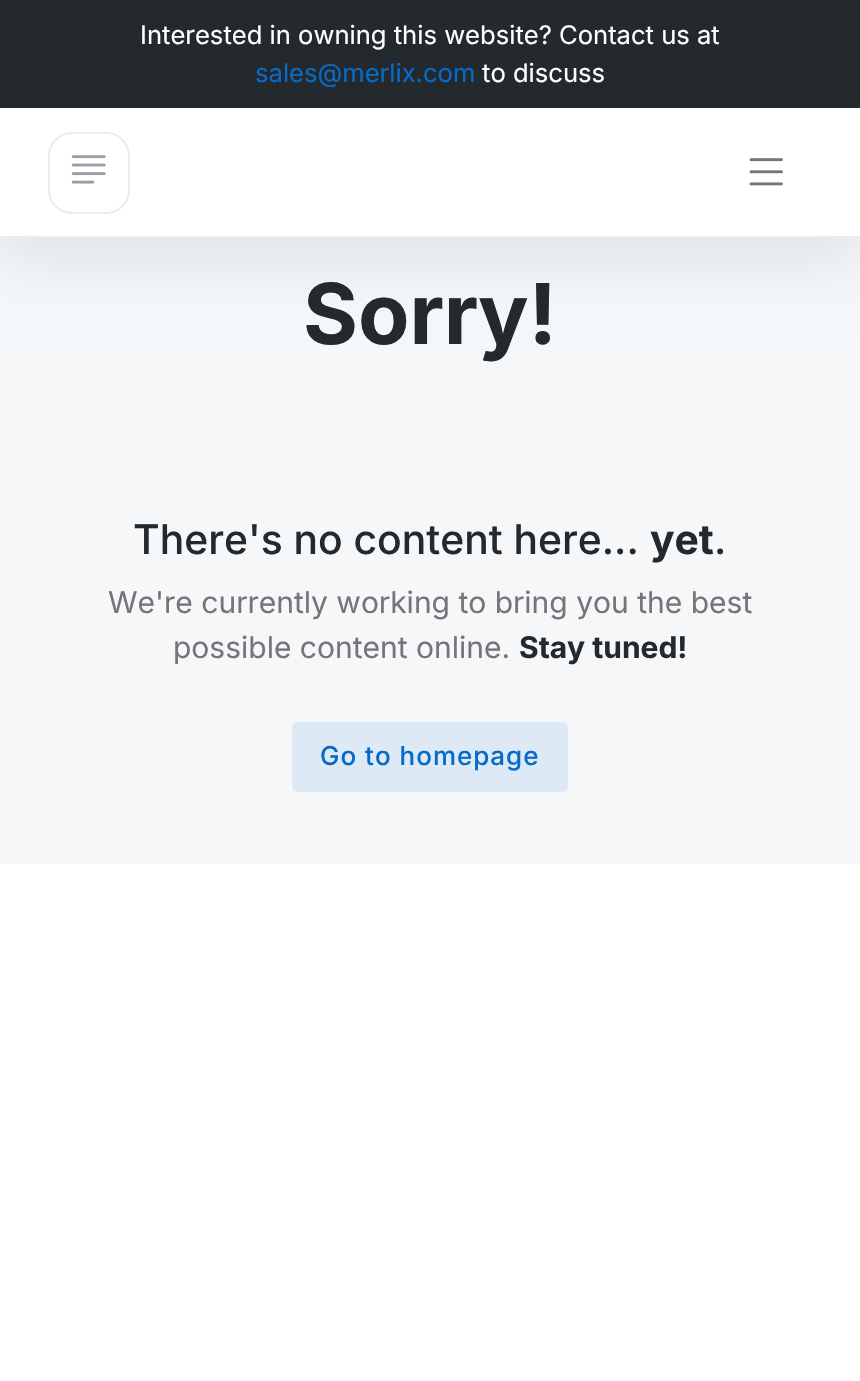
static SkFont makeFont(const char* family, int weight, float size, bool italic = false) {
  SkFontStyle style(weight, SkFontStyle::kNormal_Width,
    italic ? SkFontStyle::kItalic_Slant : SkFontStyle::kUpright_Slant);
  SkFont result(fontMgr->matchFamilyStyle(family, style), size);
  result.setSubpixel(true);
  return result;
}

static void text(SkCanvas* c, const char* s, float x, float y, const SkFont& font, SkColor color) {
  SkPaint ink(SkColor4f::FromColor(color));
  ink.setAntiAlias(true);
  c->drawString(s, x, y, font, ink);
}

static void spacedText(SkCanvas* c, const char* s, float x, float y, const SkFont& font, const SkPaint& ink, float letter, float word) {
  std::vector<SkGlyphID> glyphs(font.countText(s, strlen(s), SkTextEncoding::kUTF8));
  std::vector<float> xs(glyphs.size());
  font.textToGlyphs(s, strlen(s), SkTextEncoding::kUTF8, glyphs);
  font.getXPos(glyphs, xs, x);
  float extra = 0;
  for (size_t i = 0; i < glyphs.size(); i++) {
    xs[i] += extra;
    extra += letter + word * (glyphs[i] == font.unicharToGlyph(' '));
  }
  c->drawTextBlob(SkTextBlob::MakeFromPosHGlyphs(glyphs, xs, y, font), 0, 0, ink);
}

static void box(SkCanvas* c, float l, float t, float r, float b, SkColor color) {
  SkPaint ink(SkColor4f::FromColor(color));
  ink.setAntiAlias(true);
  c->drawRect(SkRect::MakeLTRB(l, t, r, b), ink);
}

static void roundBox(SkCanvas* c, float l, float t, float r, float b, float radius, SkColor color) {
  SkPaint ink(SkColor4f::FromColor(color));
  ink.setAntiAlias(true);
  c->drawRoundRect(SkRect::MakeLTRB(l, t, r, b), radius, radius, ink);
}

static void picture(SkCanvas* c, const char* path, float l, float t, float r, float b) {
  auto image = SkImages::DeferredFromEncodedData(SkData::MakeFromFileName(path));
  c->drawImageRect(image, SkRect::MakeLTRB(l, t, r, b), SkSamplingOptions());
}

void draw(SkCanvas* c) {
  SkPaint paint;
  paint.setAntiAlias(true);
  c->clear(0xffffffff);
  box(c, 0, 238, 860, 864, 0xfff5f7f9);
  paint.setColor(0x1a020617);
  paint.setMaskFilter(SkMaskFilter::MakeBlur(kNormal_SkBlurStyle, 30));
  c->drawRect(SkRect::MakeLTRB(0, 16, 860, 254), paint);
  paint.setMaskFilter(nullptr);
  box(c, 0, 108, 860, 236, 0xffffffff);
  box(c, 0, 236, 860, 238, 0xffececee);
  box(c, 0, 0, 860, 108, 0xff24292d);
  SkFont face1 = makeFont("Inter", 400, 25.6f);
  text(c, "Interested in owning this website? Contact us at", 140, 44, face1, 0xffffffff);
  text(c, "sales@merlix.com", 255, 82, face1, 0xff066ac9);
  text(c, "to discuss", 482, 82, face1, 0xffffffff);
  paint.setStyle(SkPaint::kStroke_Style);
  paint.setStrokeWidth(2);
  paint.setColor(0xffececee);
  c->drawRoundRect(SkRect::MakeLTRB(49, 133, 129, 213), 23, 23, paint);
  picture(c, "img_01.png", 71, 155, 106, 184);
  picture(c, "img_02.png", 749, 158, 783, 186);
  SkFont face2 = makeFont("Inter", 700, 84);
  text(c, "Sorry!", 303, 344, face2, 0xff24292d);
  SkFont face3 = makeFont("Inter", 500, 40.8f);
  text(c, "There's no content here...", 133, 554, face3, 0xff24292d);
  SkFont face4 = makeFont("Inter", 700, 40.8f);
  text(c, "yet", 650, 554, face4, 0xff24292d);
  text(c, ".", 714, 554, face3, 0xff24292d);
  SkFont face5 = makeFont("Inter", 400, 30);
  text(c, "We're currently working to bring you the best", 108, 613, face5, 0xff747579);
  text(c, "possible content online.", 173, 658, face5, 0xff747579);
  SkFont face6 = makeFont("Inter", 700, 30);
  text(c, "Stay tuned!", 519, 658, face6, 0xff24292d);
  roundBox(c, 292, 722, 568, 792, 6, 0xffdde9f4);
  SkFont face7 = makeFont("Inter", 500, 26);
  paint.setStyle(SkPaint::kFill_Style);
  paint.setColor(0xff066ac9);
  spacedText(c, "Go to homepage", 320, 765, face7, paint, 1, 0);
}
